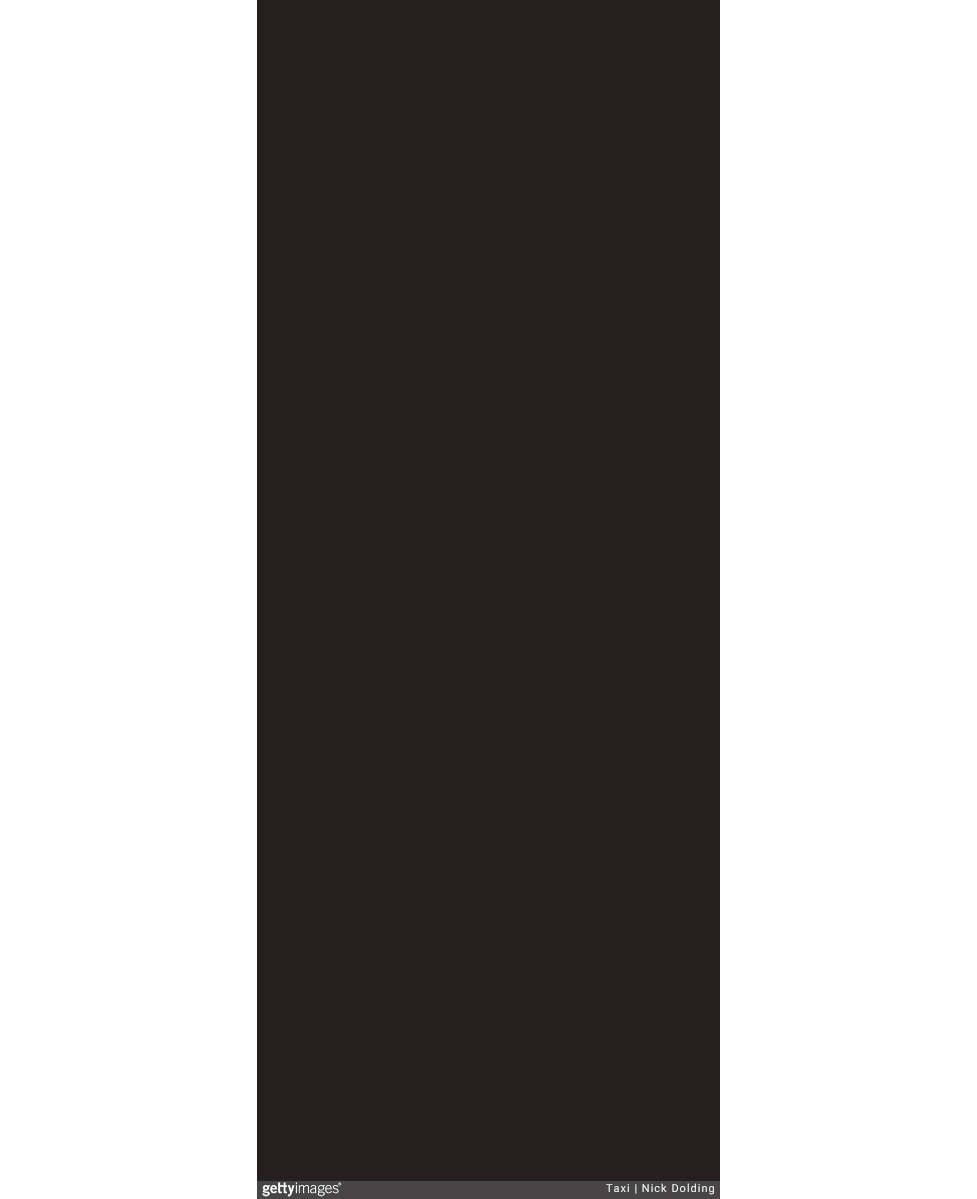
static SkFont makeFont(const char* family, int weight, float size, bool italic = false) {
  SkFontStyle style(weight, SkFontStyle::kNormal_Width,
    italic ? SkFontStyle::kItalic_Slant : SkFontStyle::kUpright_Slant);
  SkFont result(fontMgr->matchFamilyStyle(family, style), size);
  result.setSubpixel(true);
  return result;
}

static void spacedText(SkCanvas* c, const char* s, float x, float y, const SkFont& font, const SkPaint& ink, float letter, float word) {
  std::vector<SkGlyphID> glyphs(font.countText(s, strlen(s), SkTextEncoding::kUTF8));
  std::vector<float> xs(glyphs.size());
  font.textToGlyphs(s, strlen(s), SkTextEncoding::kUTF8, glyphs);
  font.getXPos(glyphs, xs, x);
  float extra = 0;
  for (size_t i = 0; i < glyphs.size(); i++) {
    xs[i] += extra;
    extra += letter + word * (glyphs[i] == font.unicharToGlyph(' '));
  }
  c->drawTextBlob(SkTextBlob::MakeFromPosHGlyphs(glyphs, xs, y, font), 0, 0, ink);
}

static void box(SkCanvas* c, float l, float t, float r, float b, SkColor color) {
  SkPaint ink(SkColor4f::FromColor(color));
  ink.setAntiAlias(true);
  c->drawRect(SkRect::MakeLTRB(l, t, r, b), ink);
}

static void picture(SkCanvas* c, const char* path, float l, float t, float r, float b) {
  auto image = SkImages::DeferredFromEncodedData(SkData::MakeFromFileName(path));
  c->drawImageRect(image, SkRect::MakeLTRB(l, t, r, b), SkSamplingOptions());
}

void draw(SkCanvas* c) {
  SkPaint paint;
  paint.setAntiAlias(true);
  c->clear(0xffffffff);
  box(c, 257, 0, 720, 1181, 0xff251f20);
  box(c, 257, 1181, 720, 1199, 0xff474545);
  picture(c, "img_01.png", 262, 1182, 342, 1197);
  SkFont face1 = makeFont("Roboto", 400, 11);
  paint.setColor(0xffeeeeee);
  spacedText(c, "Taxi | Nick Dolding", 606, 1192, face1, paint, 1, 0);
}
